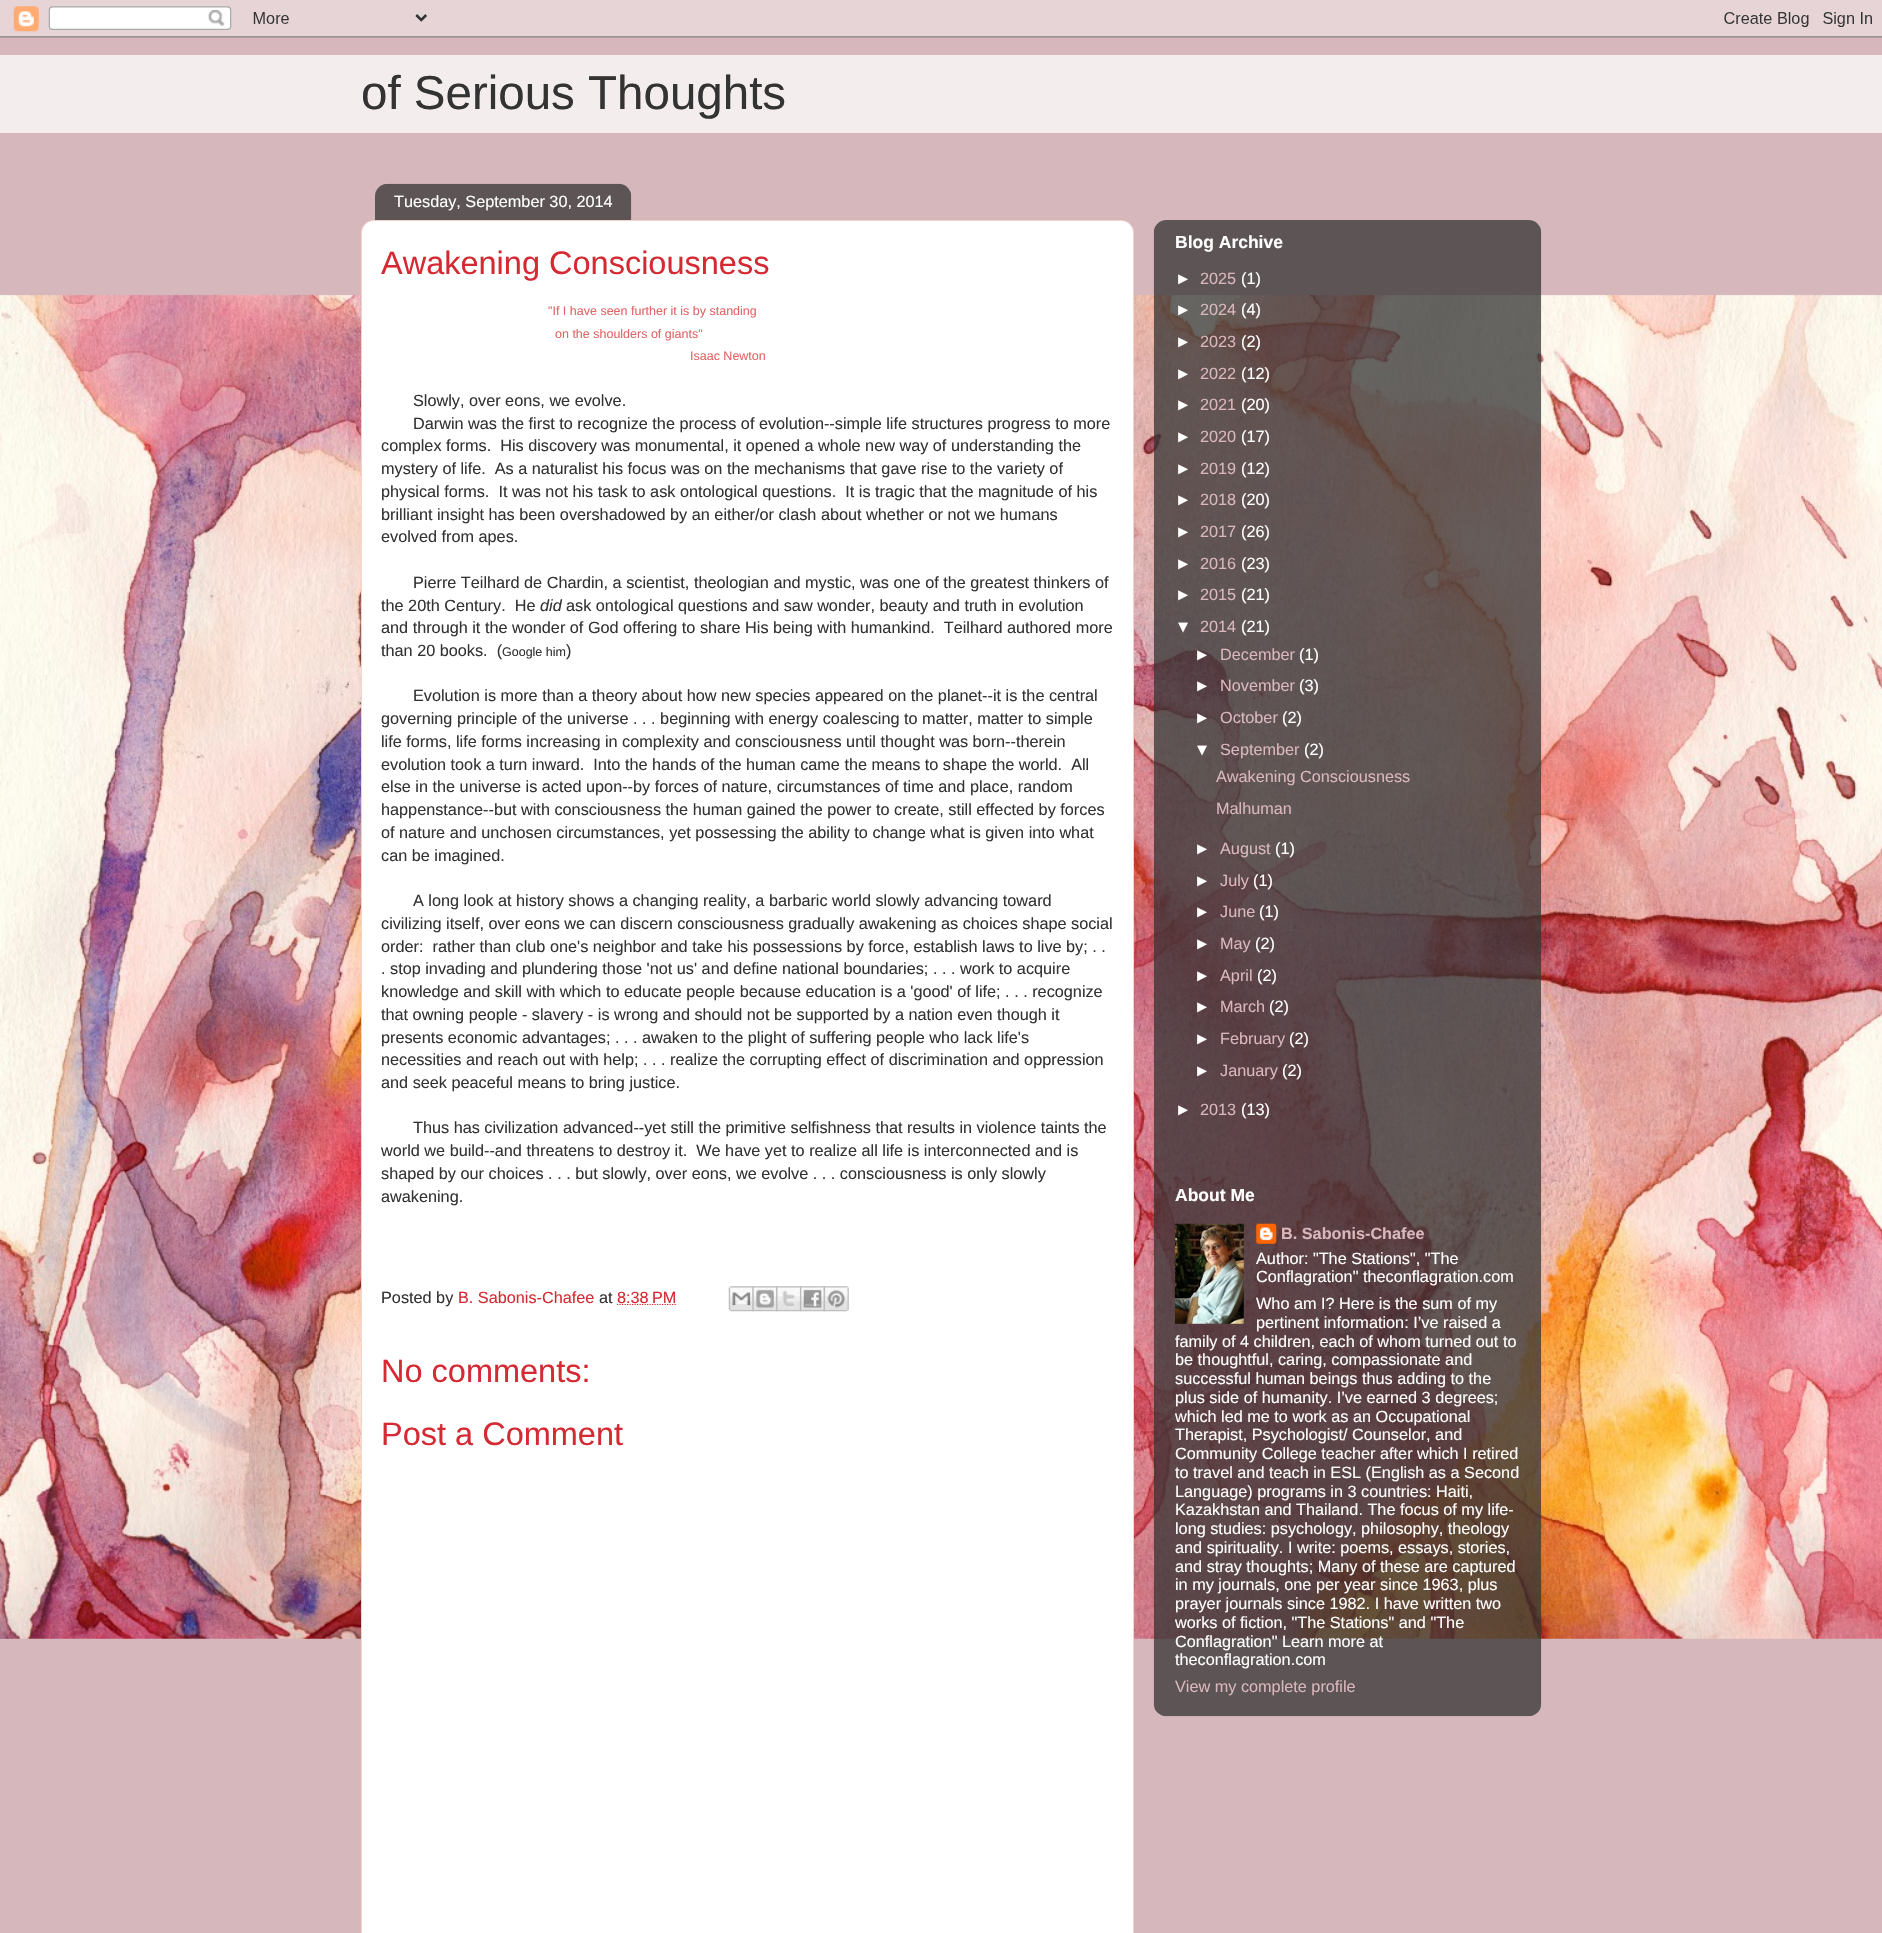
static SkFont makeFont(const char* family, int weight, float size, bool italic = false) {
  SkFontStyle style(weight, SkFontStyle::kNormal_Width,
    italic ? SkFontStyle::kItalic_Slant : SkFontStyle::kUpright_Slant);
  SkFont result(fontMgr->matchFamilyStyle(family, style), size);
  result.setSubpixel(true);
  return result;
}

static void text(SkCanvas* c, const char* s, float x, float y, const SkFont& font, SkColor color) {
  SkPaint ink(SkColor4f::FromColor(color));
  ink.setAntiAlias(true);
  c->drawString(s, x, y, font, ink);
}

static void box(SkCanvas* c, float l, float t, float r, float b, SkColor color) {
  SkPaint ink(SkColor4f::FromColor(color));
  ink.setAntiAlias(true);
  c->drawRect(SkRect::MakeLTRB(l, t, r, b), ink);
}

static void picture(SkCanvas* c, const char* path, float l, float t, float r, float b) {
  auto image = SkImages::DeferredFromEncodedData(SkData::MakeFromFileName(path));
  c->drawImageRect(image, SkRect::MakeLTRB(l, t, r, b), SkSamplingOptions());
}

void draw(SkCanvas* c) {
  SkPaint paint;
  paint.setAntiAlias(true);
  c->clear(0xffd5b7bc);
  picture(c, "img_01.png", 0, 294, 1882, 1639);
  picture(c, "img_02.png", 0, 0, 1882, 38);
  box(c, 0, 55, 1882, 133, 0xfff4edee);
  SkFont face1 = makeFont("Liberation Sans", 400, 47.5f);
  text(c, "of Serious Thoughts", 361, 109, face1, 0xff333333);
  paint.setColor(0xffffffff);
  c->drawPath(SkPathBuilder().moveTo(374, 220.5f).lineTo(1121, 220.5f).cubicTo(1128, 220.5f, 1133.5f, 226, 1133.5f, 233).lineTo(1133.5f, 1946.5f).lineTo(361.5f, 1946.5f).lineTo(361.5f, 233).cubicTo(361.5f, 226, 367, 220.5f, 374, 220.5f).close().detach(), paint);
  paint.setStyle(SkPaint::kStroke_Style);
  paint.setStrokeWidth(1);
  paint.setColor(0xfff4d3cc);
  c->drawPath(SkPathBuilder().moveTo(374, 220.5f).lineTo(1121, 220.5f).cubicTo(1128, 220.5f, 1133.5f, 226, 1133.5f, 233).lineTo(1133.5f, 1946.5f).lineTo(361.5f, 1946.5f).lineTo(361.5f, 233).cubicTo(361.5f, 226, 367, 220.5f, 374, 220.5f).close().detach(), paint);
  picture(c, "img_03.png", 375, 183, 632, 220);
  SkFont face2 = makeFont("Liberation Sans", 400, 16.25f);
  text(c, "Tuesday, September 30, 2014", 394, 207, face2, 0xffffffff);
  SkFont face3 = makeFont("Liberation Sans", 400, 32.5f);
  text(c, "Awakening Consciousness", 381, 274, face3, 0xffd52a33);
  SkFont face4 = makeFont("Liberation Sans", 400, 12.5f);
  text(c, "\"If I have seen further it is by standing", 548, 315, face4, 0xffe06666);
  text(c, "on the shoulders of giants\"", 555, 338, face4, 0xffe06666);
  text(c, "Isaac Newton", 690, 360, face4, 0xffe06666);
  text(c, "Slowly, over eons, we evolve.", 413, 406, face2, 0xff333333);
  text(c, "Darwin was the first to recognize the process of evolution--simple life structures progress to more", 413, 429, face2, 0xff333333);
  text(c, "complex forms.  His discovery was monumental, it opened a whole new way of understanding the", 381, 451, face2, 0xff333333);
  text(c, "mystery of life.  As a naturalist his focus was on the mechanisms that gave rise to the variety of", 381, 474, face2, 0xff333333);
  text(c, "physical forms.  It was not his task to ask ontological questions.  It is tragic that the magnitude of his", 381, 497, face2, 0xff333333);
  text(c, "brilliant insight has been overshadowed by an either/or clash about whether or not we humans", 381, 520, face2, 0xff333333);
  text(c, "evolved from apes.", 381, 542, face2, 0xff333333);
  text(c, "Pierre Teilhard de Chardin, a scientist, theologian and mystic, was one of the greatest thinkers of", 413, 588, face2, 0xff333333);
  text(c, "the 20th Century.  He", 381, 611, face2, 0xff333333);
  SkFont face5 = makeFont("Liberation Sans", 400, 16.25f, true);
  text(c, "did", 540, 611, face5, 0xff333333);
  text(c, "ask ontological questions and saw wonder, beauty and truth in evolution", 566, 611, face2, 0xff333333);
  text(c, "and through it the wonder of God offering to share His being with humankind.  Teilhard authored more", 381, 633, face2, 0xff333333);
  text(c, "than 20 books.  (", 381, 656, face2, 0xff333333);
  text(c, "Google him", 502, 656, face4, 0xff333333);
  text(c, ")", 566, 656, face2, 0xff333333);
  text(c, "Evolution is more than a theory about how new species appeared on the planet--it is the central", 413, 701, face2, 0xff333333);
  text(c, "governing principle of the universe . . . beginning with energy coalescing to matter, matter to simple", 381, 724, face2, 0xff333333);
  text(c, "life forms, life forms increasing in complexity and consciousness until thought was born--therein", 381, 747, face2, 0xff333333);
  text(c, "evolution took a turn inward.  Into the hands of the human came the means to shape the world.  All", 381, 770, face2, 0xff333333);
  text(c, "else in the universe is acted upon--by forces of nature, circumstances of time and place, random", 381, 792, face2, 0xff333333);
  text(c, "happenstance--but with consciousness the human gained the power to create, still effected by forces", 381, 815, face2, 0xff333333);
  text(c, "of nature and unchosen circumstances, yet possessing the ability to change what is given into what", 381, 838, face2, 0xff333333);
  text(c, "can be imagined.", 381, 861, face2, 0xff333333);
  text(c, "A long look at history shows a changing reality, a barbaric world slowly advancing toward", 413, 906, face2, 0xff333333);
  text(c, "civilizing itself, over eons we can discern consciousness gradually awakening as choices shape social", 381, 929, face2, 0xff333333);
  text(c, "order:  rather than club one's neighbor and take his possessions by force, establish laws to live by; . .", 381, 952, face2, 0xff333333);
  text(c, ". stop invading and plundering those 'not us' and define national boundaries; . . . work to acquire", 381, 974, face2, 0xff333333);
  text(c, "knowledge and skill with which to educate people because education is a 'good' of life; . . . recognize", 381, 997, face2, 0xff333333);
  text(c, "that owning people - slavery - is wrong and should not be supported by a nation even though it", 381, 1020, face2, 0xff333333);
  text(c, "presents economic advantages; . . . awaken to the plight of suffering people who lack life's", 381, 1043, face2, 0xff333333);
  text(c, "necessities and reach out with help; . . . realize the corrupting effect of discrimination and oppression", 381, 1065, face2, 0xff333333);
  text(c, "and seek peaceful means to bring justice.", 381, 1088, face2, 0xff333333);
  text(c, "Thus has civilization advanced--yet still the primitive selfishness that results in violence taints the", 413, 1133, face2, 0xff333333);
  text(c, "world we build--and threatens to destroy it.  We have yet to realize all life is interconnected and is", 381, 1156, face2, 0xff333333);
  text(c, "shaped by our choices . . . but slowly, over eons, we evolve . . . consciousness is only slowly", 381, 1179, face2, 0xff333333);
  text(c, "awakening.", 381, 1202, face2, 0xff333333);
  text(c, "Posted by", 381, 1303, face2, 0xff333333);
  text(c, "B. Sabonis-Chafee", 458, 1303, face2, 0xffd52a33);
  text(c, "at", 599, 1303, face2, 0xff333333);
  paint.setStrokeWidth(1.2f);
  paint.setColor(0xffd52a33);
  paint.setPathEffect(SkDashPathEffect::Make({{1.25f, 1.25f}}, 0));
  c->drawPath(SkPathBuilder().moveTo(617, 1304.5f).lineTo(676.5f, 1304.5f).detach(), paint);
  paint.setPathEffect(nullptr);
  text(c, "8:38 PM", 617, 1303, face2, 0xffd52a33);
  picture(c, "img_04.png", 728, 1286, 754, 1312);
  picture(c, "img_05.png", 752, 1286, 778, 1312);
  picture(c, "img_06.png", 776, 1286, 802, 1312);
  picture(c, "img_07.png", 800, 1286, 825, 1312);
  picture(c, "img_08.png", 823, 1286, 849, 1312);
  text(c, "No comments:", 381, 1382, face3, 0xffd52a33);
  text(c, "Post a Comment", 381, 1445, face3, 0xffd52a33);
  picture(c, "img_09.png", 1153, 220, 1542, 1717);
  SkFont face6 = makeFont("Liberation Sans", 700, 17.5f);
  text(c, "Blog Archive", 1175, 248, face6, 0xffffffff);
  text(c, "►", 1175, 284, face2, 0xffffffff);
  text(c, "2025", 1200, 284, face2, 0xffdab7bc);
  text(c, "(1)", 1241, 284, face2, 0xffffffff);
  text(c, "►", 1175, 315, face2, 0xffffffff);
  text(c, "2024", 1200, 315, face2, 0xffdab7bc);
  text(c, "(4)", 1241, 315, face2, 0xffffffff);
  text(c, "►", 1175, 347, face2, 0xffffffff);
  text(c, "2023", 1200, 347, face2, 0xffdab7bc);
  text(c, "(2)", 1241, 347, face2, 0xffffffff);
  text(c, "►", 1175, 379, face2, 0xffffffff);
  text(c, "2022", 1200, 379, face2, 0xffdab7bc);
  text(c, "(12)", 1241, 379, face2, 0xffffffff);
  text(c, "►", 1175, 410, face2, 0xffffffff);
  text(c, "2021", 1200, 410, face2, 0xffdab7bc);
  text(c, "(20)", 1241, 410, face2, 0xffffffff);
  text(c, "►", 1175, 442, face2, 0xffffffff);
  text(c, "2020", 1200, 442, face2, 0xffdab7bc);
  text(c, "(17)", 1241, 442, face2, 0xffffffff);
  text(c, "►", 1175, 474, face2, 0xffffffff);
  text(c, "2019", 1200, 474, face2, 0xffdab7bc);
  text(c, "(12)", 1241, 474, face2, 0xffffffff);
  text(c, "►", 1175, 505, face2, 0xffffffff);
  text(c, "2018", 1200, 505, face2, 0xffdab7bc);
  text(c, "(20)", 1241, 505, face2, 0xffffffff);
  text(c, "►", 1175, 537, face2, 0xffffffff);
  text(c, "2017", 1200, 537, face2, 0xffdab7bc);
  text(c, "(26)", 1241, 537, face2, 0xffffffff);
  text(c, "►", 1175, 569, face2, 0xffffffff);
  text(c, "2016", 1200, 569, face2, 0xffdab7bc);
  text(c, "(23)", 1241, 569, face2, 0xffffffff);
  text(c, "►", 1175, 600, face2, 0xffffffff);
  text(c, "2015", 1200, 600, face2, 0xffdab7bc);
  text(c, "(21)", 1241, 600, face2, 0xffffffff);
  text(c, "▼", 1175, 632, face2, 0xffffffff);
  text(c, "2014", 1200, 632, face2, 0xffdab7bc);
  text(c, "(21)", 1241, 632, face2, 0xffffffff);
  text(c, "►", 1194, 660, face2, 0xffffffff);
  text(c, "December", 1220, 660, face2, 0xffdab7bc);
  text(c, "(1)", 1299, 660, face2, 0xffffffff);
  text(c, "►", 1194, 691, face2, 0xffffffff);
  text(c, "November", 1220, 691, face2, 0xffdab7bc);
  text(c, "(3)", 1299, 691, face2, 0xffffffff);
  text(c, "►", 1194, 723, face2, 0xffffffff);
  text(c, "October", 1220, 723, face2, 0xffdab7bc);
  text(c, "(2)", 1282, 723, face2, 0xffffffff);
  text(c, "▼", 1194, 755, face2, 0xffffffff);
  text(c, "September", 1220, 755, face2, 0xffdab7bc);
  text(c, "(2)", 1304, 755, face2, 0xffffffff);
  text(c, "Awakening Consciousness", 1216, 782, face2, 0xffdab7bc);
  text(c, "Malhuman", 1216, 814, face2, 0xffdab7bc);
  text(c, "►", 1194, 854, face2, 0xffffffff);
  text(c, "August", 1220, 854, face2, 0xffdab7bc);
  text(c, "(1)", 1275, 854, face2, 0xffffffff);
  text(c, "►", 1194, 886, face2, 0xffffffff);
  text(c, "July", 1220, 886, face2, 0xffdab7bc);
  text(c, "(1)", 1253, 886, face2, 0xffffffff);
  text(c, "►", 1194, 917, face2, 0xffffffff);
  text(c, "June", 1220, 917, face2, 0xffdab7bc);
  text(c, "(1)", 1259, 917, face2, 0xffffffff);
  text(c, "►", 1194, 949, face2, 0xffffffff);
  text(c, "May", 1220, 949, face2, 0xffdab7bc);
  text(c, "(2)", 1255, 949, face2, 0xffffffff);
  text(c, "►", 1194, 981, face2, 0xffffffff);
  text(c, "April", 1220, 981, face2, 0xffdab7bc);
  text(c, "(2)", 1257, 981, face2, 0xffffffff);
  text(c, "►", 1194, 1012, face2, 0xffffffff);
  text(c, "March", 1220, 1012, face2, 0xffdab7bc);
  text(c, "(2)", 1269, 1012, face2, 0xffffffff);
  text(c, "►", 1194, 1044, face2, 0xffffffff);
  text(c, "February", 1220, 1044, face2, 0xffdab7bc);
  text(c, "(2)", 1289, 1044, face2, 0xffffffff);
  text(c, "►", 1194, 1076, face2, 0xffffffff);
  text(c, "January", 1220, 1076, face2, 0xffdab7bc);
  text(c, "(2)", 1282, 1076, face2, 0xffffffff);
  text(c, "►", 1175, 1115, face2, 0xffffffff);
  text(c, "2013", 1200, 1115, face2, 0xffdab7bc);
  text(c, "(13)", 1241, 1115, face2, 0xffffffff);
  text(c, "About Me", 1175, 1201, face6, 0xffffffff);
  picture(c, "img_10.png", 1175, 1223, 1244, 1324);
  picture(c, "img_11.png", 1256, 1223, 1277, 1244);
  SkFont face7 = makeFont("Liberation Sans", 700, 16.25f);
  text(c, "B. Sabonis-Chafee", 1281, 1239, face7, 0xffdab7bc);
  text(c, "Author: \"The Stations\", \"The", 1256, 1264, face2, 0xffffffff);
  text(c, "Conflagration\" theconflagration.com", 1256, 1282, face2, 0xffffffff);
  text(c, "Who am I? Here is the sum of my", 1256, 1309, face2, 0xffffffff);
  text(c, "pertinent information: I’ve raised a", 1256, 1328, face2, 0xffffffff);
  text(c, "family of 4 children, each of whom turned out to", 1175, 1347, face2, 0xffffffff);
  text(c, "be thoughtful, caring, compassionate and", 1175, 1365, face2, 0xffffffff);
  text(c, "successful human beings thus adding to the", 1175, 1384, face2, 0xffffffff);
  text(c, "plus side of humanity. I’ve earned 3 degrees;", 1175, 1403, face2, 0xffffffff);
  text(c, "which led me to work as an Occupational", 1175, 1422, face2, 0xffffffff);
  text(c, "Therapist, Psychologist/ Counselor, and", 1175, 1440, face2, 0xffffffff);
  text(c, "Community College teacher after which I retired", 1175, 1459, face2, 0xffffffff);
  text(c, "to travel and teach in ESL (English as a Second", 1175, 1478, face2, 0xffffffff);
  text(c, "Language) programs in 3 countries: Haiti,", 1175, 1497, face2, 0xffffffff);
  text(c, "Kazakhstan and Thailand. The focus of my life-", 1175, 1515, face2, 0xffffffff);
  text(c, "long studies: psychology, philosophy, theology", 1175, 1534, face2, 0xffffffff);
  text(c, "and spirituality. I write: poems, essays, stories,", 1175, 1553, face2, 0xffffffff);
  text(c, "and stray thoughts; Many of these are captured", 1175, 1572, face2, 0xffffffff);
  text(c, "in my journals, one per year since 1963, plus", 1175, 1590, face2, 0xffffffff);
  text(c, "prayer journals since 1982. I have written two", 1175, 1609, face2, 0xffffffff);
  text(c, "works of fiction, \"The Stations\" and \"The", 1175, 1628, face2, 0xffffffff);
  text(c, "Conflagration\" Learn more at", 1175, 1647, face2, 0xffffffff);
  text(c, "theconflagration.com", 1175, 1665, face2, 0xffffffff);
  text(c, "View my complete profile", 1175, 1692, face2, 0xffdab7bc);
}
